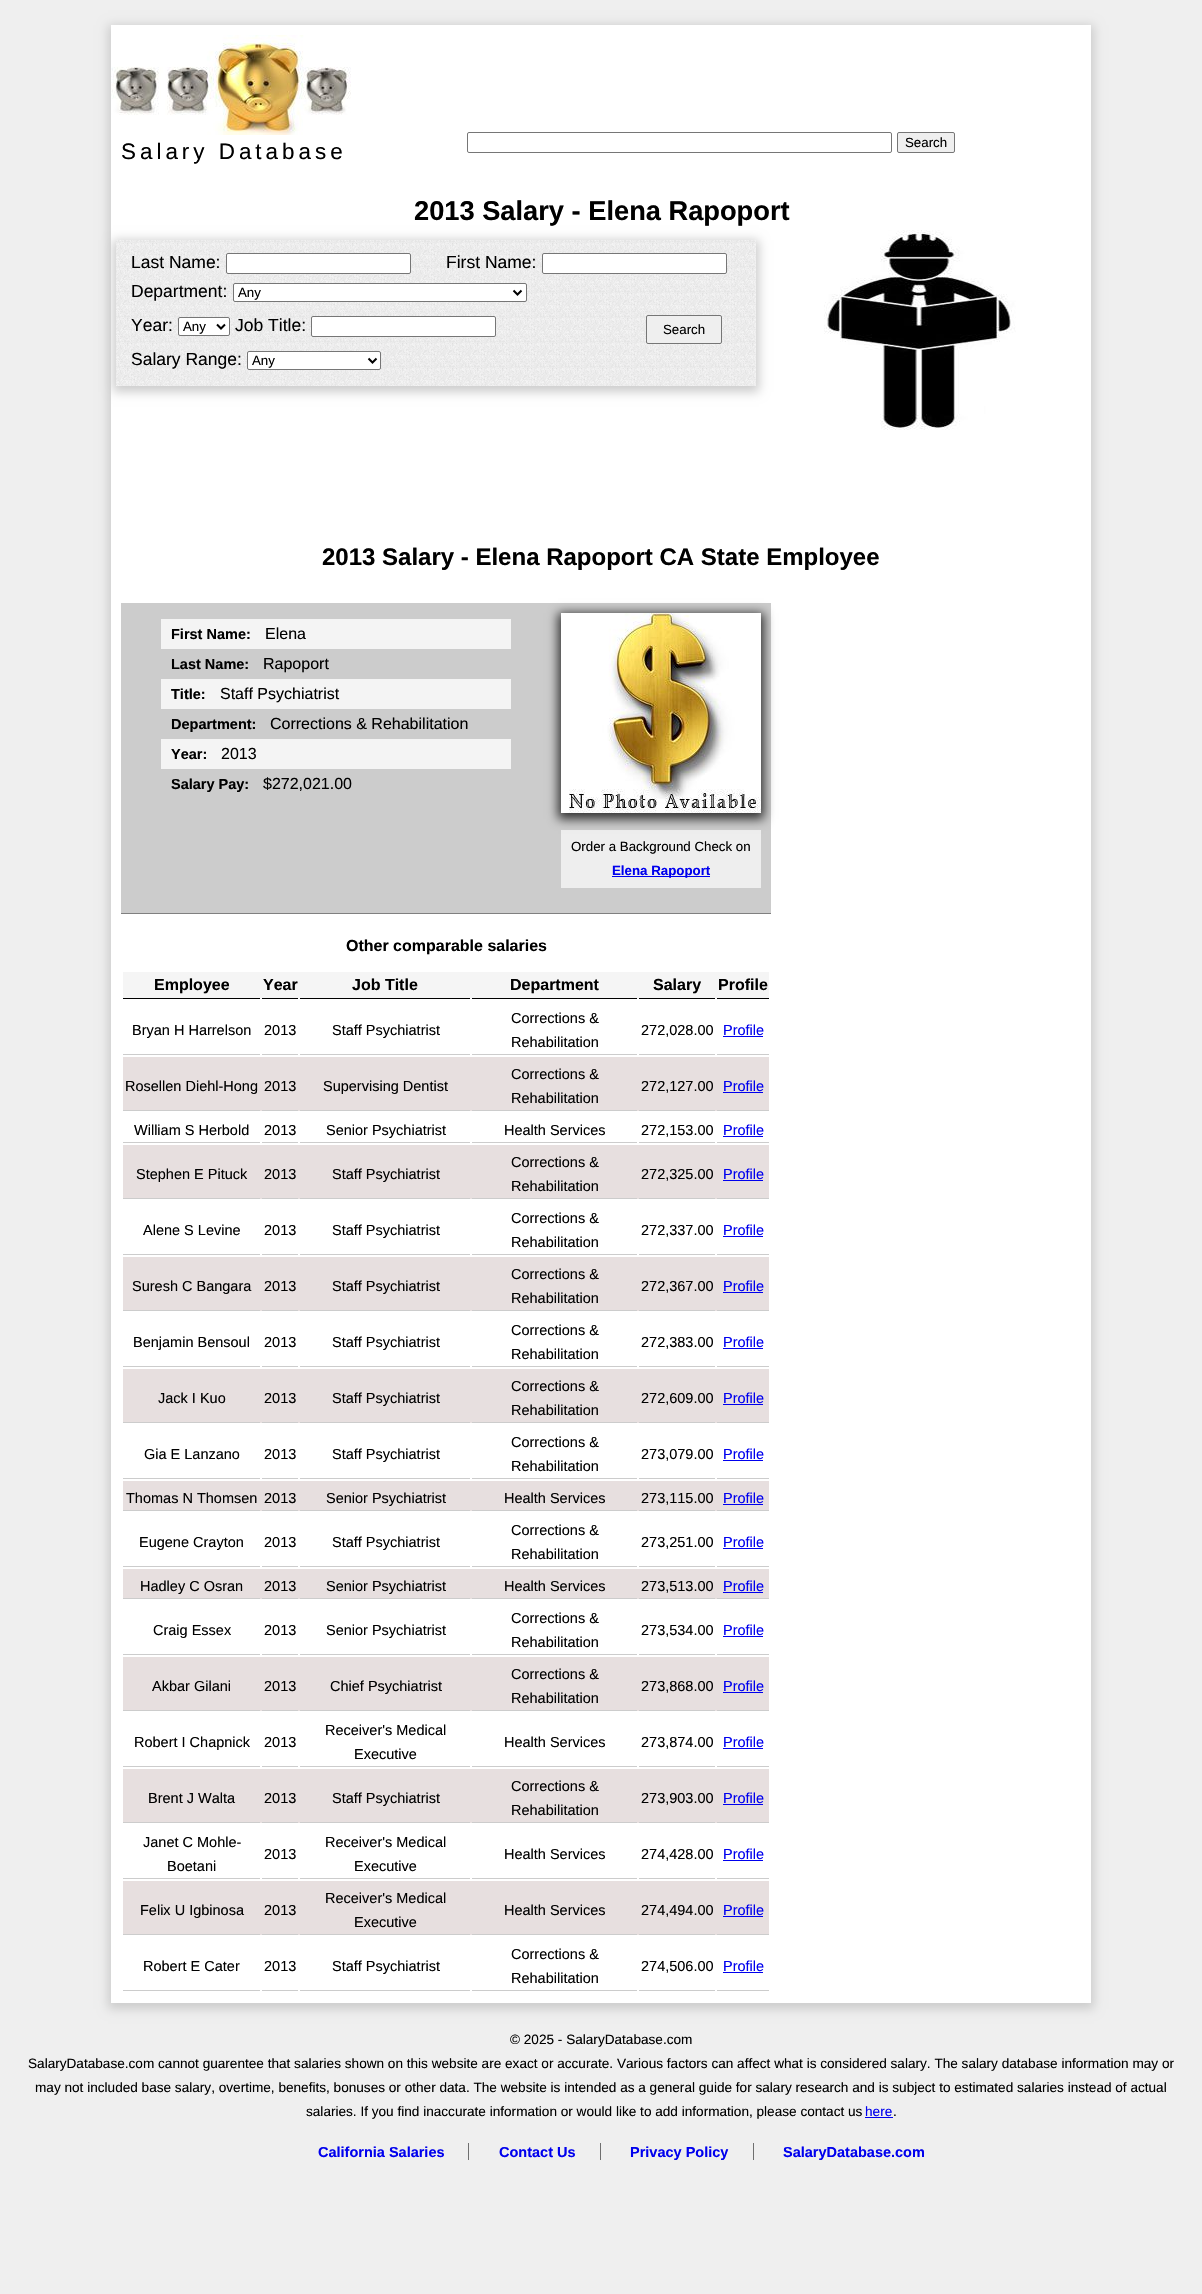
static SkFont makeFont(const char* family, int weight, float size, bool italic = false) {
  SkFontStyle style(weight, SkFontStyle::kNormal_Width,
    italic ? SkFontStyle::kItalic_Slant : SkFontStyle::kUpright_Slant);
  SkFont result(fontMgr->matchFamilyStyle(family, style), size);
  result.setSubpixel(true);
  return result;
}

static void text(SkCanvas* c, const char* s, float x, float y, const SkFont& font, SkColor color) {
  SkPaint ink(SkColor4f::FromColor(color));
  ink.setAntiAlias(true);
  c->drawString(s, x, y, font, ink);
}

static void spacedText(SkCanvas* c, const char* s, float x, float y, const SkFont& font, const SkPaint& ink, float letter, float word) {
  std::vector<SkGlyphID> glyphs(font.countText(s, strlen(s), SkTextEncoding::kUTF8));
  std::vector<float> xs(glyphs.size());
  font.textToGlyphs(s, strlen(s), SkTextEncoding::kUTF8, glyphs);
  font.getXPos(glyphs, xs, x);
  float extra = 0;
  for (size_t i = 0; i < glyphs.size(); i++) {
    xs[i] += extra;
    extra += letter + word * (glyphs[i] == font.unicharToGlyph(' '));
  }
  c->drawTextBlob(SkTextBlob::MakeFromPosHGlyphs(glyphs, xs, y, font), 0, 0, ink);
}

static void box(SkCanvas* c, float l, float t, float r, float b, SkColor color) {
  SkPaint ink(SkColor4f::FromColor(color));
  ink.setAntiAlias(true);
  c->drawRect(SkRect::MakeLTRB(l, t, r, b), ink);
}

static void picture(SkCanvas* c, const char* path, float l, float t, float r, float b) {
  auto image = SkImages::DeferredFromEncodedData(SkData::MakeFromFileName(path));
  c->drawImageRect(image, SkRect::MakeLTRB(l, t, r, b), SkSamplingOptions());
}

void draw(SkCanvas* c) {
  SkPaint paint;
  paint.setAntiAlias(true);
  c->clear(0xffefefef);
  paint.setColor(0xffcccccc);
  paint.setMaskFilter(SkMaskFilter::MakeBlur(kNormal_SkBlurStyle, 5));
  c->drawRect(SkRect::MakeLTRB(108, 25, 1094, 2009), paint);
  paint.setMaskFilter(nullptr);
  box(c, 111, 25, 1091, 2003, 0xffffffff);
  picture(c, "img_01.png", 111, 35, 351, 135);
  SkFont face1 = makeFont("Liberation Sans", 400, 22.4f);
  paint.setColor(0xff000000);
  spacedText(c, "Salary Database", 121, 159, face1, paint, 4, 0);
  paint.setStyle(SkPaint::kStroke_Style);
  paint.setStrokeWidth(1);
  paint.setColor(0xff767676);
  c->drawRoundRect(SkRect::MakeLTRB(467.5f, 132.5f, 891.5f, 152.5f), 1.5f, 1.5f, paint);
  paint.setStyle(SkPaint::kFill_Style);
  paint.setColor(0xffefefef);
  c->drawRoundRect(SkRect::MakeLTRB(897.5f, 132.5f, 954.5f, 152.5f), 1.5f, 1.5f, paint);
  paint.setStyle(SkPaint::kStroke_Style);
  paint.setColor(0xff767676);
  c->drawRoundRect(SkRect::MakeLTRB(897.5f, 132.5f, 954.5f, 152.5f), 1.5f, 1.5f, paint);
  SkFont face2 = makeFont("Liberation Sans", 400, 13.3f);
  text(c, "Search", 905, 147, face2, 0xff000000);
  SkFont face3 = makeFont("Liberation Sans", 700, 27.25f);
  text(c, "2013 Salary - Elena Rapoport", 414, 220, face3, 0xff000000);
  paint.setStyle(SkPaint::kFill_Style);
  paint.setColor(0xffcccccc);
  paint.setMaskFilter(SkMaskFilter::MakeBlur(kNormal_SkBlurStyle, 5));
  c->drawRect(SkRect::MakeLTRB(113, 240, 759, 392), paint);
  paint.setMaskFilter(nullptr);
  picture(c, "img_02.png", 116, 240, 756, 386);
  SkFont face4 = makeFont("Liberation Sans", 400, 17.5f);
  text(c, "Last Name:", 131, 268, face4, 0xff000000);
  paint.setColor(0xffffffff);
  c->drawRoundRect(SkRect::MakeLTRB(226.5f, 253.5f, 410.5f, 273.5f), 1.5f, 1.5f, paint);
  paint.setStyle(SkPaint::kStroke_Style);
  paint.setColor(0xff767676);
  c->drawRoundRect(SkRect::MakeLTRB(226.5f, 253.5f, 410.5f, 273.5f), 1.5f, 1.5f, paint);
  text(c, "First Name:", 446, 268, face4, 0xff000000);
  paint.setStyle(SkPaint::kFill_Style);
  paint.setColor(0xffffffff);
  c->drawRoundRect(SkRect::MakeLTRB(542.5f, 253.5f, 726.5f, 273.5f), 1.5f, 1.5f, paint);
  paint.setStyle(SkPaint::kStroke_Style);
  paint.setColor(0xff767676);
  c->drawRoundRect(SkRect::MakeLTRB(542.5f, 253.5f, 726.5f, 273.5f), 1.5f, 1.5f, paint);
  text(c, "Department:", 131, 297, face4, 0xff000000);
  paint.setStyle(SkPaint::kFill_Style);
  paint.setColor(0xffffffff);
  c->drawRoundRect(SkRect::MakeLTRB(233.5f, 283.5f, 526.5f, 301.5f), 1.5f, 1.5f, paint);
  paint.setStyle(SkPaint::kStroke_Style);
  paint.setColor(0xff767676);
  c->drawRoundRect(SkRect::MakeLTRB(233.5f, 283.5f, 526.5f, 301.5f), 1.5f, 1.5f, paint);
  paint.setStrokeWidth(2);
  paint.setColor(0xff000000);
  c->drawPath(SkPathBuilder().moveTo(513.5f, 290.5f).lineTo(517.5f, 294.5f).lineTo(521.5f, 290.5f).detach(), paint);
  text(c, "Any", 238, 297, face2, 0xff000000);
  text(c, "Year:", 131, 331, face4, 0xff000000);
  paint.setStyle(SkPaint::kFill_Style);
  paint.setColor(0xffffffff);
  c->drawRoundRect(SkRect::MakeLTRB(178.5f, 317.5f, 229.5f, 335.5f), 1.5f, 1.5f, paint);
  paint.setStyle(SkPaint::kStroke_Style);
  paint.setStrokeWidth(1);
  paint.setColor(0xff767676);
  c->drawRoundRect(SkRect::MakeLTRB(178.5f, 317.5f, 229.5f, 335.5f), 1.5f, 1.5f, paint);
  paint.setStrokeWidth(2);
  paint.setColor(0xff000000);
  c->drawPath(SkPathBuilder().moveTo(217, 324.5f).lineTo(221, 328.5f).lineTo(225, 324.5f).detach(), paint);
  text(c, "Any", 183, 331, face2, 0xff000000);
  text(c, "Job Title:", 235, 331, face4, 0xff000000);
  paint.setStyle(SkPaint::kFill_Style);
  paint.setColor(0xffffffff);
  c->drawRoundRect(SkRect::MakeLTRB(311.5f, 316.5f, 495.5f, 336.5f), 1.5f, 1.5f, paint);
  paint.setStyle(SkPaint::kStroke_Style);
  paint.setStrokeWidth(1);
  paint.setColor(0xff767676);
  c->drawRoundRect(SkRect::MakeLTRB(311.5f, 316.5f, 495.5f, 336.5f), 1.5f, 1.5f, paint);
  paint.setStyle(SkPaint::kFill_Style);
  paint.setColor(0xffefefef);
  c->drawRoundRect(SkRect::MakeLTRB(646.5f, 315.5f, 721.5f, 343.5f), 1.5f, 1.5f, paint);
  paint.setStyle(SkPaint::kStroke_Style);
  paint.setColor(0xff767676);
  c->drawRoundRect(SkRect::MakeLTRB(646.5f, 315.5f, 721.5f, 343.5f), 1.5f, 1.5f, paint);
  text(c, "Search", 663, 334, face2, 0xff000000);
  text(c, "Salary Range:", 131, 365, face4, 0xff000000);
  paint.setStyle(SkPaint::kFill_Style);
  paint.setColor(0xffffffff);
  c->drawRoundRect(SkRect::MakeLTRB(247.5f, 351.5f, 380.5f, 369.5f), 1.5f, 1.5f, paint);
  paint.setStyle(SkPaint::kStroke_Style);
  paint.setColor(0xff767676);
  c->drawRoundRect(SkRect::MakeLTRB(247.5f, 351.5f, 380.5f, 369.5f), 1.5f, 1.5f, paint);
  paint.setStrokeWidth(2);
  paint.setColor(0xff000000);
  c->drawPath(SkPathBuilder().moveTo(368.5f, 358.5f).lineTo(372.5f, 362.5f).lineTo(376.5f, 358.5f).detach(), paint);
  text(c, "Any", 252, 365, face2, 0xff000000);
  picture(c, "img_03.png", 824, 230, 1016, 430);
  SkFont face5 = makeFont("Liberation Sans", 700, 24);
  text(c, "2013 Salary - Elena Rapoport CA State Employee", 322, 565, face5, 0xff000000);
  box(c, 121, 603, 771, 913, 0xffcccccc);
  box(c, 121, 913, 771, 914, 0xff808080);
  box(c, 161, 619, 511, 649, 0xfff4f4f4);
  SkFont face6 = makeFont("Liberation Sans", 700, 14.5f);
  text(c, "First Name:", 171, 639, face6, 0xff000000);
  SkFont face7 = makeFont("Liberation Sans", 400, 16);
  text(c, "Elena", 265, 639, face7, 0xff000000);
  text(c, "Last Name:", 171, 669, face6, 0xff000000);
  text(c, "Rapoport", 263, 669, face7, 0xff000000);
  box(c, 161, 679, 511, 709, 0xfff4f4f4);
  text(c, "Title:", 171, 699, face6, 0xff000000);
  text(c, "Staff Psychiatrist", 220, 699, face7, 0xff000000);
  text(c, "Department:", 171, 729, face6, 0xff000000);
  text(c, "Corrections & Rehabilitation", 270, 729, face7, 0xff000000);
  box(c, 161, 739, 511, 769, 0xfff4f4f4);
  text(c, "Year:", 171, 759, face6, 0xff000000);
  text(c, "2013", 221, 759, face7, 0xff000000);
  text(c, "Salary Pay:", 171, 789, face6, 0xff000000);
  text(c, "$272,021.00", 263, 789, face7, 0xff000000);
  box(c, 561, 830, 761, 888, 0xffeeeeee);
  paint.setStyle(SkPaint::kFill_Style);
  paint.setColor(0xff313131);
  paint.setMaskFilter(SkMaskFilter::MakeBlur(kNormal_SkBlurStyle, 5));
  c->drawRect(SkRect::MakeLTRB(558, 613, 764, 819), paint);
  paint.setMaskFilter(nullptr);
  picture(c, "img_04.png", 561, 613, 761, 813);
  text(c, "Order a Background Check on", 571, 851, face2, 0xff000000);
  box(c, 612, 876, 710, 877, 0xff0000ee);
  SkFont face8 = makeFont("Liberation Sans", 700, 13.3f);
  text(c, "Elena Rapoport", 612, 875, face8, 0xff0000ee);
  SkFont face9 = makeFont("Liberation Sans", 700, 16);
  text(c, "Other comparable salaries", 346, 951, face9, 0xff000000);
  box(c, 123, 972, 769, 999, 0xfff5f5f5);
  box(c, 123, 998, 260, 999, 0xff000000);
  text(c, "Employee", 154, 990, face9, 0xff000000);
  box(c, 262, 998, 298, 999, 0xff000000);
  text(c, "Year", 263, 990, face9, 0xff000000);
  box(c, 300, 998, 470, 999, 0xff000000);
  text(c, "Job Title", 352, 990, face9, 0xff000000);
  box(c, 472, 998, 637, 999, 0xff000000);
  text(c, "Department", 510, 990, face9, 0xff000000);
  box(c, 639, 998, 715, 999, 0xff000000);
  text(c, "Salary", 653, 990, face9, 0xff000000);
  box(c, 717, 998, 769, 999, 0xff000000);
  text(c, "Profile", 718, 990, face9, 0xff000000);
  box(c, 123, 1054, 260, 1055, 0xffcccccc);
  SkFont face10 = makeFont("Liberation Sans", 400, 14.5f);
  text(c, "Bryan H Harrelson", 132, 1035, face10, 0xff000000);
  box(c, 262, 1054, 298, 1055, 0xffcccccc);
  text(c, "2013", 264, 1035, face10, 0xff000000);
  box(c, 300, 1054, 470, 1055, 0xffcccccc);
  text(c, "Staff Psychiatrist", 332, 1035, face10, 0xff000000);
  box(c, 472, 1054, 637, 1055, 0xffcccccc);
  text(c, "Corrections &", 511, 1023, face10, 0xff000000);
  text(c, "Rehabilitation", 511, 1047, face10, 0xff000000);
  box(c, 639, 1054, 715, 1055, 0xffcccccc);
  text(c, "272,028.00", 641, 1035, face10, 0xff000000);
  box(c, 717, 1054, 769, 1055, 0xffcccccc);
  text(c, "Profile", 723, 1035, face10, 0xff0000ee);
  box(c, 723, 1036, 763, 1037, 0xff0000ee);
  box(c, 123, 1057, 769, 1111, 0xffe7dfdf);
  box(c, 123, 1110, 260, 1111, 0xffcccccc);
  text(c, "Rosellen Diehl-Hong", 125, 1091, face10, 0xff000000);
  box(c, 262, 1110, 298, 1111, 0xffcccccc);
  text(c, "2013", 264, 1091, face10, 0xff000000);
  box(c, 300, 1110, 470, 1111, 0xffcccccc);
  text(c, "Supervising Dentist", 323, 1091, face10, 0xff000000);
  box(c, 472, 1110, 637, 1111, 0xffcccccc);
  text(c, "Corrections &", 511, 1079, face10, 0xff000000);
  text(c, "Rehabilitation", 511, 1103, face10, 0xff000000);
  box(c, 639, 1110, 715, 1111, 0xffcccccc);
  text(c, "272,127.00", 641, 1091, face10, 0xff000000);
  box(c, 717, 1110, 769, 1111, 0xffcccccc);
  text(c, "Profile", 723, 1091, face10, 0xff0000ee);
  box(c, 723, 1092, 763, 1093, 0xff0000ee);
  box(c, 123, 1142, 260, 1143, 0xffcccccc);
  text(c, "William S Herbold", 134, 1135, face10, 0xff000000);
  box(c, 262, 1142, 298, 1143, 0xffcccccc);
  text(c, "2013", 264, 1135, face10, 0xff000000);
  box(c, 300, 1142, 470, 1143, 0xffcccccc);
  text(c, "Senior Psychiatrist", 326, 1135, face10, 0xff000000);
  box(c, 472, 1142, 637, 1143, 0xffcccccc);
  text(c, "Health Services", 504, 1135, face10, 0xff000000);
  box(c, 639, 1142, 715, 1143, 0xffcccccc);
  text(c, "272,153.00", 641, 1135, face10, 0xff000000);
  box(c, 717, 1142, 769, 1143, 0xffcccccc);
  text(c, "Profile", 723, 1135, face10, 0xff0000ee);
  box(c, 723, 1136, 763, 1137, 0xff0000ee);
  box(c, 123, 1145, 769, 1199, 0xffe7dfdf);
  box(c, 123, 1198, 260, 1199, 0xffcccccc);
  text(c, "Stephen E Pituck", 136, 1179, face10, 0xff000000);
  box(c, 262, 1198, 298, 1199, 0xffcccccc);
  text(c, "2013", 264, 1179, face10, 0xff000000);
  box(c, 300, 1198, 470, 1199, 0xffcccccc);
  text(c, "Staff Psychiatrist", 332, 1179, face10, 0xff000000);
  box(c, 472, 1198, 637, 1199, 0xffcccccc);
  text(c, "Corrections &", 511, 1167, face10, 0xff000000);
  text(c, "Rehabilitation", 511, 1191, face10, 0xff000000);
  box(c, 639, 1198, 715, 1199, 0xffcccccc);
  text(c, "272,325.00", 641, 1179, face10, 0xff000000);
  box(c, 717, 1198, 769, 1199, 0xffcccccc);
  text(c, "Profile", 723, 1179, face10, 0xff0000ee);
  box(c, 723, 1180, 763, 1181, 0xff0000ee);
  box(c, 123, 1254, 260, 1255, 0xffcccccc);
  text(c, "Alene S Levine", 143, 1235, face10, 0xff000000);
  box(c, 262, 1254, 298, 1255, 0xffcccccc);
  text(c, "2013", 264, 1235, face10, 0xff000000);
  box(c, 300, 1254, 470, 1255, 0xffcccccc);
  text(c, "Staff Psychiatrist", 332, 1235, face10, 0xff000000);
  box(c, 472, 1254, 637, 1255, 0xffcccccc);
  text(c, "Corrections &", 511, 1223, face10, 0xff000000);
  text(c, "Rehabilitation", 511, 1247, face10, 0xff000000);
  box(c, 639, 1254, 715, 1255, 0xffcccccc);
  text(c, "272,337.00", 641, 1235, face10, 0xff000000);
  box(c, 717, 1254, 769, 1255, 0xffcccccc);
  text(c, "Profile", 723, 1235, face10, 0xff0000ee);
  box(c, 723, 1236, 763, 1237, 0xff0000ee);
  box(c, 123, 1257, 769, 1311, 0xffe7dfdf);
  box(c, 123, 1310, 260, 1311, 0xffcccccc);
  text(c, "Suresh C Bangara", 132, 1291, face10, 0xff000000);
  box(c, 262, 1310, 298, 1311, 0xffcccccc);
  text(c, "2013", 264, 1291, face10, 0xff000000);
  box(c, 300, 1310, 470, 1311, 0xffcccccc);
  text(c, "Staff Psychiatrist", 332, 1291, face10, 0xff000000);
  box(c, 472, 1310, 637, 1311, 0xffcccccc);
  text(c, "Corrections &", 511, 1279, face10, 0xff000000);
  text(c, "Rehabilitation", 511, 1303, face10, 0xff000000);
  box(c, 639, 1310, 715, 1311, 0xffcccccc);
  text(c, "272,367.00", 641, 1291, face10, 0xff000000);
  box(c, 717, 1310, 769, 1311, 0xffcccccc);
  text(c, "Profile", 723, 1291, face10, 0xff0000ee);
  box(c, 723, 1292, 763, 1293, 0xff0000ee);
  box(c, 123, 1366, 260, 1367, 0xffcccccc);
  text(c, "Benjamin Bensoul", 133, 1347, face10, 0xff000000);
  box(c, 262, 1366, 298, 1367, 0xffcccccc);
  text(c, "2013", 264, 1347, face10, 0xff000000);
  box(c, 300, 1366, 470, 1367, 0xffcccccc);
  text(c, "Staff Psychiatrist", 332, 1347, face10, 0xff000000);
  box(c, 472, 1366, 637, 1367, 0xffcccccc);
  text(c, "Corrections &", 511, 1335, face10, 0xff000000);
  text(c, "Rehabilitation", 511, 1359, face10, 0xff000000);
  box(c, 639, 1366, 715, 1367, 0xffcccccc);
  text(c, "272,383.00", 641, 1347, face10, 0xff000000);
  box(c, 717, 1366, 769, 1367, 0xffcccccc);
  text(c, "Profile", 723, 1347, face10, 0xff0000ee);
  box(c, 723, 1348, 763, 1349, 0xff0000ee);
  box(c, 123, 1369, 769, 1423, 0xffe7dfdf);
  box(c, 123, 1422, 260, 1423, 0xffcccccc);
  text(c, "Jack I Kuo", 158, 1403, face10, 0xff000000);
  box(c, 262, 1422, 298, 1423, 0xffcccccc);
  text(c, "2013", 264, 1403, face10, 0xff000000);
  box(c, 300, 1422, 470, 1423, 0xffcccccc);
  text(c, "Staff Psychiatrist", 332, 1403, face10, 0xff000000);
  box(c, 472, 1422, 637, 1423, 0xffcccccc);
  text(c, "Corrections &", 511, 1391, face10, 0xff000000);
  text(c, "Rehabilitation", 511, 1415, face10, 0xff000000);
  box(c, 639, 1422, 715, 1423, 0xffcccccc);
  text(c, "272,609.00", 641, 1403, face10, 0xff000000);
  box(c, 717, 1422, 769, 1423, 0xffcccccc);
  text(c, "Profile", 723, 1403, face10, 0xff0000ee);
  box(c, 723, 1404, 763, 1405, 0xff0000ee);
  box(c, 123, 1478, 260, 1479, 0xffcccccc);
  text(c, "Gia E Lanzano", 144, 1459, face10, 0xff000000);
  box(c, 262, 1478, 298, 1479, 0xffcccccc);
  text(c, "2013", 264, 1459, face10, 0xff000000);
  box(c, 300, 1478, 470, 1479, 0xffcccccc);
  text(c, "Staff Psychiatrist", 332, 1459, face10, 0xff000000);
  box(c, 472, 1478, 637, 1479, 0xffcccccc);
  text(c, "Corrections &", 511, 1447, face10, 0xff000000);
  text(c, "Rehabilitation", 511, 1471, face10, 0xff000000);
  box(c, 639, 1478, 715, 1479, 0xffcccccc);
  text(c, "273,079.00", 641, 1459, face10, 0xff000000);
  box(c, 717, 1478, 769, 1479, 0xffcccccc);
  text(c, "Profile", 723, 1459, face10, 0xff0000ee);
  box(c, 723, 1460, 763, 1461, 0xff0000ee);
  box(c, 123, 1481, 769, 1511, 0xffe7dfdf);
  box(c, 123, 1510, 260, 1511, 0xffcccccc);
  text(c, "Thomas N Thomsen", 126, 1503, face10, 0xff000000);
  box(c, 262, 1510, 298, 1511, 0xffcccccc);
  text(c, "2013", 264, 1503, face10, 0xff000000);
  box(c, 300, 1510, 470, 1511, 0xffcccccc);
  text(c, "Senior Psychiatrist", 326, 1503, face10, 0xff000000);
  box(c, 472, 1510, 637, 1511, 0xffcccccc);
  text(c, "Health Services", 504, 1503, face10, 0xff000000);
  box(c, 639, 1510, 715, 1511, 0xffcccccc);
  text(c, "273,115.00", 641, 1503, face10, 0xff000000);
  box(c, 717, 1510, 769, 1511, 0xffcccccc);
  text(c, "Profile", 723, 1503, face10, 0xff0000ee);
  box(c, 723, 1504, 763, 1505, 0xff0000ee);
  box(c, 123, 1566, 260, 1567, 0xffcccccc);
  text(c, "Eugene Crayton", 139, 1547, face10, 0xff000000);
  box(c, 262, 1566, 298, 1567, 0xffcccccc);
  text(c, "2013", 264, 1547, face10, 0xff000000);
  box(c, 300, 1566, 470, 1567, 0xffcccccc);
  text(c, "Staff Psychiatrist", 332, 1547, face10, 0xff000000);
  box(c, 472, 1566, 637, 1567, 0xffcccccc);
  text(c, "Corrections &", 511, 1535, face10, 0xff000000);
  text(c, "Rehabilitation", 511, 1559, face10, 0xff000000);
  box(c, 639, 1566, 715, 1567, 0xffcccccc);
  text(c, "273,251.00", 641, 1547, face10, 0xff000000);
  box(c, 717, 1566, 769, 1567, 0xffcccccc);
  text(c, "Profile", 723, 1547, face10, 0xff0000ee);
  box(c, 723, 1548, 763, 1549, 0xff0000ee);
  box(c, 123, 1569, 769, 1599, 0xffe7dfdf);
  box(c, 123, 1598, 260, 1599, 0xffcccccc);
  text(c, "Hadley C Osran", 140, 1591, face10, 0xff000000);
  box(c, 262, 1598, 298, 1599, 0xffcccccc);
  text(c, "2013", 264, 1591, face10, 0xff000000);
  box(c, 300, 1598, 470, 1599, 0xffcccccc);
  text(c, "Senior Psychiatrist", 326, 1591, face10, 0xff000000);
  box(c, 472, 1598, 637, 1599, 0xffcccccc);
  text(c, "Health Services", 504, 1591, face10, 0xff000000);
  box(c, 639, 1598, 715, 1599, 0xffcccccc);
  text(c, "273,513.00", 641, 1591, face10, 0xff000000);
  box(c, 717, 1598, 769, 1599, 0xffcccccc);
  text(c, "Profile", 723, 1591, face10, 0xff0000ee);
  box(c, 723, 1592, 763, 1593, 0xff0000ee);
  box(c, 123, 1654, 260, 1655, 0xffcccccc);
  text(c, "Craig Essex", 153, 1635, face10, 0xff000000);
  box(c, 262, 1654, 298, 1655, 0xffcccccc);
  text(c, "2013", 264, 1635, face10, 0xff000000);
  box(c, 300, 1654, 470, 1655, 0xffcccccc);
  text(c, "Senior Psychiatrist", 326, 1635, face10, 0xff000000);
  box(c, 472, 1654, 637, 1655, 0xffcccccc);
  text(c, "Corrections &", 511, 1623, face10, 0xff000000);
  text(c, "Rehabilitation", 511, 1647, face10, 0xff000000);
  box(c, 639, 1654, 715, 1655, 0xffcccccc);
  text(c, "273,534.00", 641, 1635, face10, 0xff000000);
  box(c, 717, 1654, 769, 1655, 0xffcccccc);
  text(c, "Profile", 723, 1635, face10, 0xff0000ee);
  box(c, 723, 1636, 763, 1637, 0xff0000ee);
  box(c, 123, 1657, 769, 1711, 0xffe7dfdf);
  box(c, 123, 1710, 260, 1711, 0xffcccccc);
  text(c, "Akbar Gilani", 152, 1691, face10, 0xff000000);
  box(c, 262, 1710, 298, 1711, 0xffcccccc);
  text(c, "2013", 264, 1691, face10, 0xff000000);
  box(c, 300, 1710, 470, 1711, 0xffcccccc);
  text(c, "Chief Psychiatrist", 330, 1691, face10, 0xff000000);
  box(c, 472, 1710, 637, 1711, 0xffcccccc);
  text(c, "Corrections &", 511, 1679, face10, 0xff000000);
  text(c, "Rehabilitation", 511, 1703, face10, 0xff000000);
  box(c, 639, 1710, 715, 1711, 0xffcccccc);
  text(c, "273,868.00", 641, 1691, face10, 0xff000000);
  box(c, 717, 1710, 769, 1711, 0xffcccccc);
  text(c, "Profile", 723, 1691, face10, 0xff0000ee);
  box(c, 723, 1692, 763, 1693, 0xff0000ee);
  box(c, 123, 1766, 260, 1767, 0xffcccccc);
  text(c, "Robert I Chapnick", 134, 1747, face10, 0xff000000);
  box(c, 262, 1766, 298, 1767, 0xffcccccc);
  text(c, "2013", 264, 1747, face10, 0xff000000);
  box(c, 300, 1766, 470, 1767, 0xffcccccc);
  text(c, "Receiver's Medical", 325, 1735, face10, 0xff000000);
  text(c, "Executive", 354, 1759, face10, 0xff000000);
  box(c, 472, 1766, 637, 1767, 0xffcccccc);
  text(c, "Health Services", 504, 1747, face10, 0xff000000);
  box(c, 639, 1766, 715, 1767, 0xffcccccc);
  text(c, "273,874.00", 641, 1747, face10, 0xff000000);
  box(c, 717, 1766, 769, 1767, 0xffcccccc);
  text(c, "Profile", 723, 1747, face10, 0xff0000ee);
  box(c, 723, 1748, 763, 1749, 0xff0000ee);
  box(c, 123, 1769, 769, 1823, 0xffe7dfdf);
  box(c, 123, 1822, 260, 1823, 0xffcccccc);
  text(c, "Brent J Walta", 148, 1803, face10, 0xff000000);
  box(c, 262, 1822, 298, 1823, 0xffcccccc);
  text(c, "2013", 264, 1803, face10, 0xff000000);
  box(c, 300, 1822, 470, 1823, 0xffcccccc);
  text(c, "Staff Psychiatrist", 332, 1803, face10, 0xff000000);
  box(c, 472, 1822, 637, 1823, 0xffcccccc);
  text(c, "Corrections &", 511, 1791, face10, 0xff000000);
  text(c, "Rehabilitation", 511, 1815, face10, 0xff000000);
  box(c, 639, 1822, 715, 1823, 0xffcccccc);
  text(c, "273,903.00", 641, 1803, face10, 0xff000000);
  box(c, 717, 1822, 769, 1823, 0xffcccccc);
  text(c, "Profile", 723, 1803, face10, 0xff0000ee);
  box(c, 723, 1804, 763, 1805, 0xff0000ee);
  box(c, 123, 1878, 260, 1879, 0xffcccccc);
  text(c, "Janet C Mohle-", 143, 1847, face10, 0xff000000);
  text(c, "Boetani", 167, 1871, face10, 0xff000000);
  box(c, 262, 1878, 298, 1879, 0xffcccccc);
  text(c, "2013", 264, 1859, face10, 0xff000000);
  box(c, 300, 1878, 470, 1879, 0xffcccccc);
  text(c, "Receiver's Medical", 325, 1847, face10, 0xff000000);
  text(c, "Executive", 354, 1871, face10, 0xff000000);
  box(c, 472, 1878, 637, 1879, 0xffcccccc);
  text(c, "Health Services", 504, 1859, face10, 0xff000000);
  box(c, 639, 1878, 715, 1879, 0xffcccccc);
  text(c, "274,428.00", 641, 1859, face10, 0xff000000);
  box(c, 717, 1878, 769, 1879, 0xffcccccc);
  text(c, "Profile", 723, 1859, face10, 0xff0000ee);
  box(c, 723, 1860, 763, 1861, 0xff0000ee);
  box(c, 123, 1881, 769, 1935, 0xffe7dfdf);
  box(c, 123, 1934, 260, 1935, 0xffcccccc);
  text(c, "Felix U Igbinosa", 140, 1915, face10, 0xff000000);
  box(c, 262, 1934, 298, 1935, 0xffcccccc);
  text(c, "2013", 264, 1915, face10, 0xff000000);
  box(c, 300, 1934, 470, 1935, 0xffcccccc);
  text(c, "Receiver's Medical", 325, 1903, face10, 0xff000000);
  text(c, "Executive", 354, 1927, face10, 0xff000000);
  box(c, 472, 1934, 637, 1935, 0xffcccccc);
  text(c, "Health Services", 504, 1915, face10, 0xff000000);
  box(c, 639, 1934, 715, 1935, 0xffcccccc);
  text(c, "274,494.00", 641, 1915, face10, 0xff000000);
  box(c, 717, 1934, 769, 1935, 0xffcccccc);
  text(c, "Profile", 723, 1915, face10, 0xff0000ee);
  box(c, 723, 1916, 763, 1917, 0xff0000ee);
  box(c, 123, 1990, 260, 1991, 0xffcccccc);
  text(c, "Robert E Cater", 143, 1971, face10, 0xff000000);
  box(c, 262, 1990, 298, 1991, 0xffcccccc);
  text(c, "2013", 264, 1971, face10, 0xff000000);
  box(c, 300, 1990, 470, 1991, 0xffcccccc);
  text(c, "Staff Psychiatrist", 332, 1971, face10, 0xff000000);
  box(c, 472, 1990, 637, 1991, 0xffcccccc);
  text(c, "Corrections &", 511, 1959, face10, 0xff000000);
  text(c, "Rehabilitation", 511, 1983, face10, 0xff000000);
  box(c, 639, 1990, 715, 1991, 0xffcccccc);
  text(c, "274,506.00", 641, 1971, face10, 0xff000000);
  box(c, 717, 1990, 769, 1991, 0xffcccccc);
  text(c, "Profile", 723, 1971, face10, 0xff0000ee);
  box(c, 723, 1972, 763, 1973, 0xff0000ee);
  SkFont face11 = makeFont("Liberation Sans", 400, 13.6f);
  text(c, "© 2025 - SalaryDatabase.com", 510, 2044, face11, 0xff000000);
  text(c, "SalaryDatabase.com cannot guarentee that salaries shown on this website are exact or accurate. Various factors can affect what is considered salary. The salary database information may or", 28, 2068, face11, 0xff000000);
  text(c, "may not included base salary, overtime, benefits, bonuses or other data. The website is intended as a general guide for salary research and is subject to estimated salaries instead of actual", 35, 2092, face11, 0xff000000);
  text(c, "salaries. If you find inaccurate information or would like to add information, please contact us", 306, 2116, face11, 0xff000000);
  text(c, "here", 865, 2116, face11, 0xff0000ee);
  box(c, 865, 2117, 893, 2118, 0xff0000ee);
  text(c, ".", 893, 2116, face11, 0xff000000);
  text(c, "California Salaries", 318, 2157, face6, 0xff0000ee);
  box(c, 468, 2143, 469, 2160, 0xff6f6f6f);
  text(c, "Contact Us", 499, 2157, face6, 0xff0000ee);
  box(c, 600, 2143, 601, 2160, 0xff6f6f6f);
  text(c, "Privacy Policy", 630, 2157, face6, 0xff0000ee);
  box(c, 753, 2143, 754, 2160, 0xff6f6f6f);
  text(c, "SalaryDatabase.com", 783, 2157, face6, 0xff0000ee);
}
